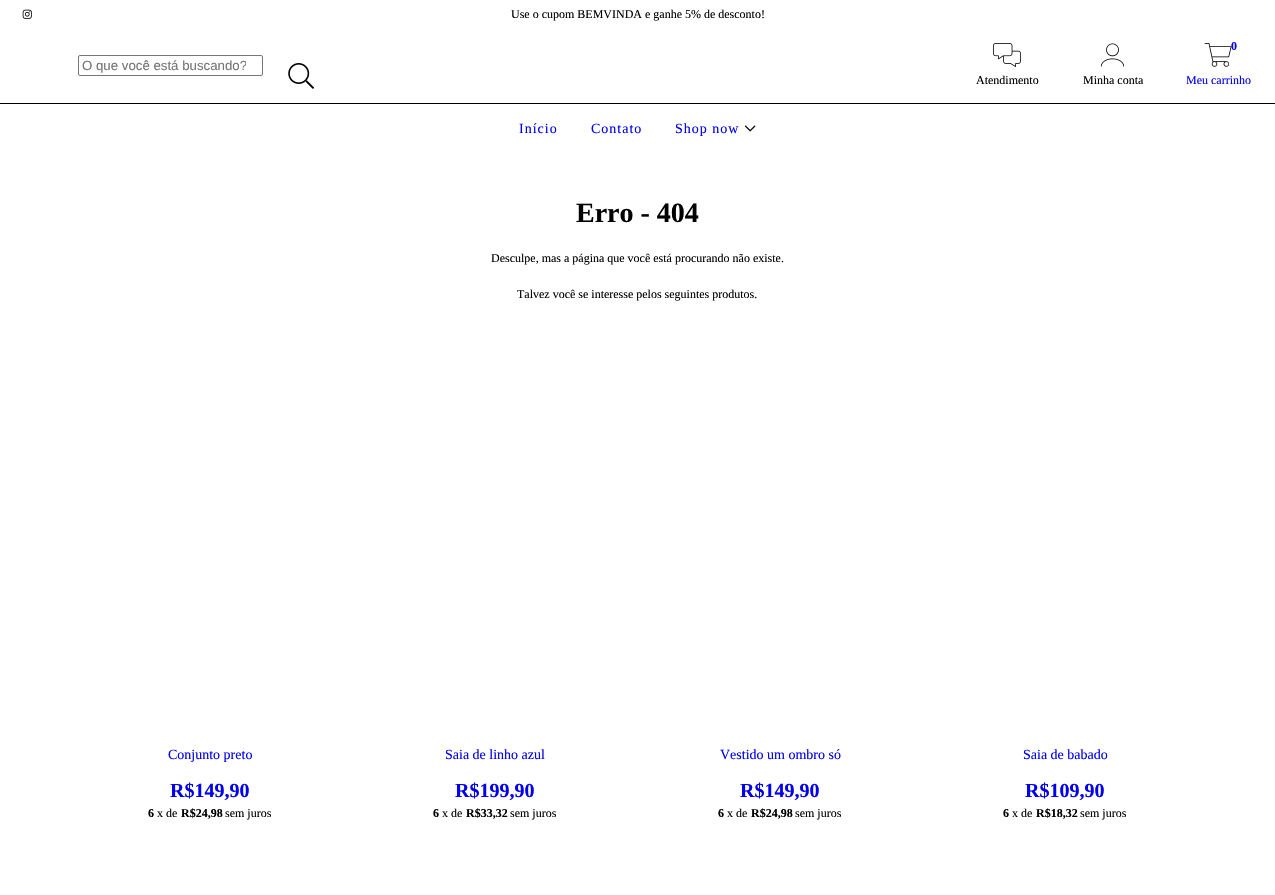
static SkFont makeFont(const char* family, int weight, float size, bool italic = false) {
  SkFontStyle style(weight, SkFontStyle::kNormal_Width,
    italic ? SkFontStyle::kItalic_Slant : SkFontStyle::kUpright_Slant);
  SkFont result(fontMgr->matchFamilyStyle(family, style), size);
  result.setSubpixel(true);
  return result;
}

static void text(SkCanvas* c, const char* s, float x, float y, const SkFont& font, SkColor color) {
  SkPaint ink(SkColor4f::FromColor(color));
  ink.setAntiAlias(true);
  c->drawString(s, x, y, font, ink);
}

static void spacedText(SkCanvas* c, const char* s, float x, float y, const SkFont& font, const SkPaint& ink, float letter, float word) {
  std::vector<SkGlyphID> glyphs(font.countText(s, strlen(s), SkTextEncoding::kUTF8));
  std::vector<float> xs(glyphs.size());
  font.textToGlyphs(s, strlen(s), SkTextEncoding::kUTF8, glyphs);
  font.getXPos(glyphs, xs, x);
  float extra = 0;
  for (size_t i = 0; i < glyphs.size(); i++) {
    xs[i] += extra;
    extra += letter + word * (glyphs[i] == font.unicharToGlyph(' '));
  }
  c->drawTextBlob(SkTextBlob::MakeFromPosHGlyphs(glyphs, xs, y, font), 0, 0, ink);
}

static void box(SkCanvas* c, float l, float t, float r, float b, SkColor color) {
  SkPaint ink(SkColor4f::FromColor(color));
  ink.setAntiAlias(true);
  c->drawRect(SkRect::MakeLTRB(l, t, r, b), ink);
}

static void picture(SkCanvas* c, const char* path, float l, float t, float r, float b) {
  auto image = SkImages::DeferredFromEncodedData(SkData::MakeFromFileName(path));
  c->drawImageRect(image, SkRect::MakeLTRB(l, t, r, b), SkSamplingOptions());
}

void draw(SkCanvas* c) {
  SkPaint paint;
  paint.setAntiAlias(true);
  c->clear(0xffffffff);
  picture(c, "img_01.png", 22, 9, 32, 19);
  SkFont face1 = makeFont("Liberation Serif", 400, 12);
  text(c, "Use o cupom BEMVINDA e ganhe 5% de desconto!", 511, 18, face1, 0xff000000);
  paint.setStyle(SkPaint::kStroke_Style);
  paint.setStrokeWidth(1);
  paint.setColor(0xff767676);
  c->drawRoundRect(SkRect::MakeLTRB(78.5f, 55.5f, 262.5f, 75.5f), 1.5f, 1.5f, paint);
  c->save();
  c->clipRect(SkRect::MakeLTRB(82, 58, 246, 73));
  SkFont face2 = makeFont("Liberation Sans", 400, 13.25f);
  text(c, "O que você está buscando?", 82, 70, face2, 0xff757575);
  c->restore();
  picture(c, "img_02.png", 288, 63, 314, 89);
  picture(c, "img_03.png", 993, 43, 1021, 67);
  text(c, "Atendimento", 976, 84, face1, 0xff000000);
  picture(c, "img_04.png", 1100, 43, 1125, 67);
  text(c, "Minha conta", 1083, 84, face1, 0xff000000);
  picture(c, "img_05.png", 1204, 43, 1232, 67);
  SkFont face3 = makeFont("Liberation Serif", 700, 12);
  text(c, "0", 1231, 50, face3, 0xff0000ee);
  text(c, "Meu carrinho", 1186, 84, face1, 0xff0000ee);
  box(c, 0, 103, 1275, 104, 0xff000000);
  SkFont face4 = makeFont("Liberation Serif", 400, 14);
  paint.setStyle(SkPaint::kFill_Style);
  paint.setColor(0xff0000ee);
  spacedText(c, "Início", 519, 133, face4, paint, 1, 0);
  spacedText(c, "Contato", 591, 133, face4, paint, 1, 0);
  spacedText(c, "Shop now", 675, 133, face4, paint, 1, 0);
  picture(c, "img_06.png", 744, 125, 756, 132);
  SkFont face5 = makeFont("Liberation Serif", 700, 28);
  text(c, "Erro - 404", 576, 222, face5, 0xff000000);
  text(c, "Desculpe, mas a página que você está procurando não existe.", 491, 262, face1, 0xff000000);
  text(c, "Talvez você se interesse pelos seguintes produtos.", 517, 298, face1, 0xff000000);
  text(c, "Conjunto preto", 168, 759, face4, 0xff0000ee);
  SkFont face6 = makeFont("Liberation Serif", 700, 20);
  text(c, "R$149,90", 170, 797, face6, 0xff0000ee);
  text(c, "6", 148, 817, face3, 0xff000000);
  text(c, "x de", 157, 817, face1, 0xff000000);
  text(c, "R$24,98", 181, 817, face3, 0xff000000);
  text(c, "sem juros", 225, 817, face1, 0xff000000);
  text(c, "Saia de linho azul", 445, 759, face4, 0xff0000ee);
  text(c, "R$199,90", 455, 797, face6, 0xff0000ee);
  text(c, "6", 433, 817, face3, 0xff000000);
  text(c, "x de", 442, 817, face1, 0xff000000);
  text(c, "R$33,32", 466, 817, face3, 0xff000000);
  text(c, "sem juros", 510, 817, face1, 0xff000000);
  text(c, "Vestido um ombro só", 720, 759, face4, 0xff0000ee);
  text(c, "R$149,90", 740, 797, face6, 0xff0000ee);
  text(c, "6", 718, 817, face3, 0xff000000);
  text(c, "x de", 727, 817, face1, 0xff000000);
  text(c, "R$24,98", 751, 817, face3, 0xff000000);
  text(c, "sem juros", 795, 817, face1, 0xff000000);
  text(c, "Saia de babado", 1023, 759, face4, 0xff0000ee);
  text(c, "R$109,90", 1025, 797, face6, 0xff0000ee);
  text(c, "6", 1003, 817, face3, 0xff000000);
  text(c, "x de", 1012, 817, face1, 0xff000000);
  text(c, "R$18,32", 1036, 817, face3, 0xff000000);
  text(c, "sem juros", 1080, 817, face1, 0xff000000);
}
